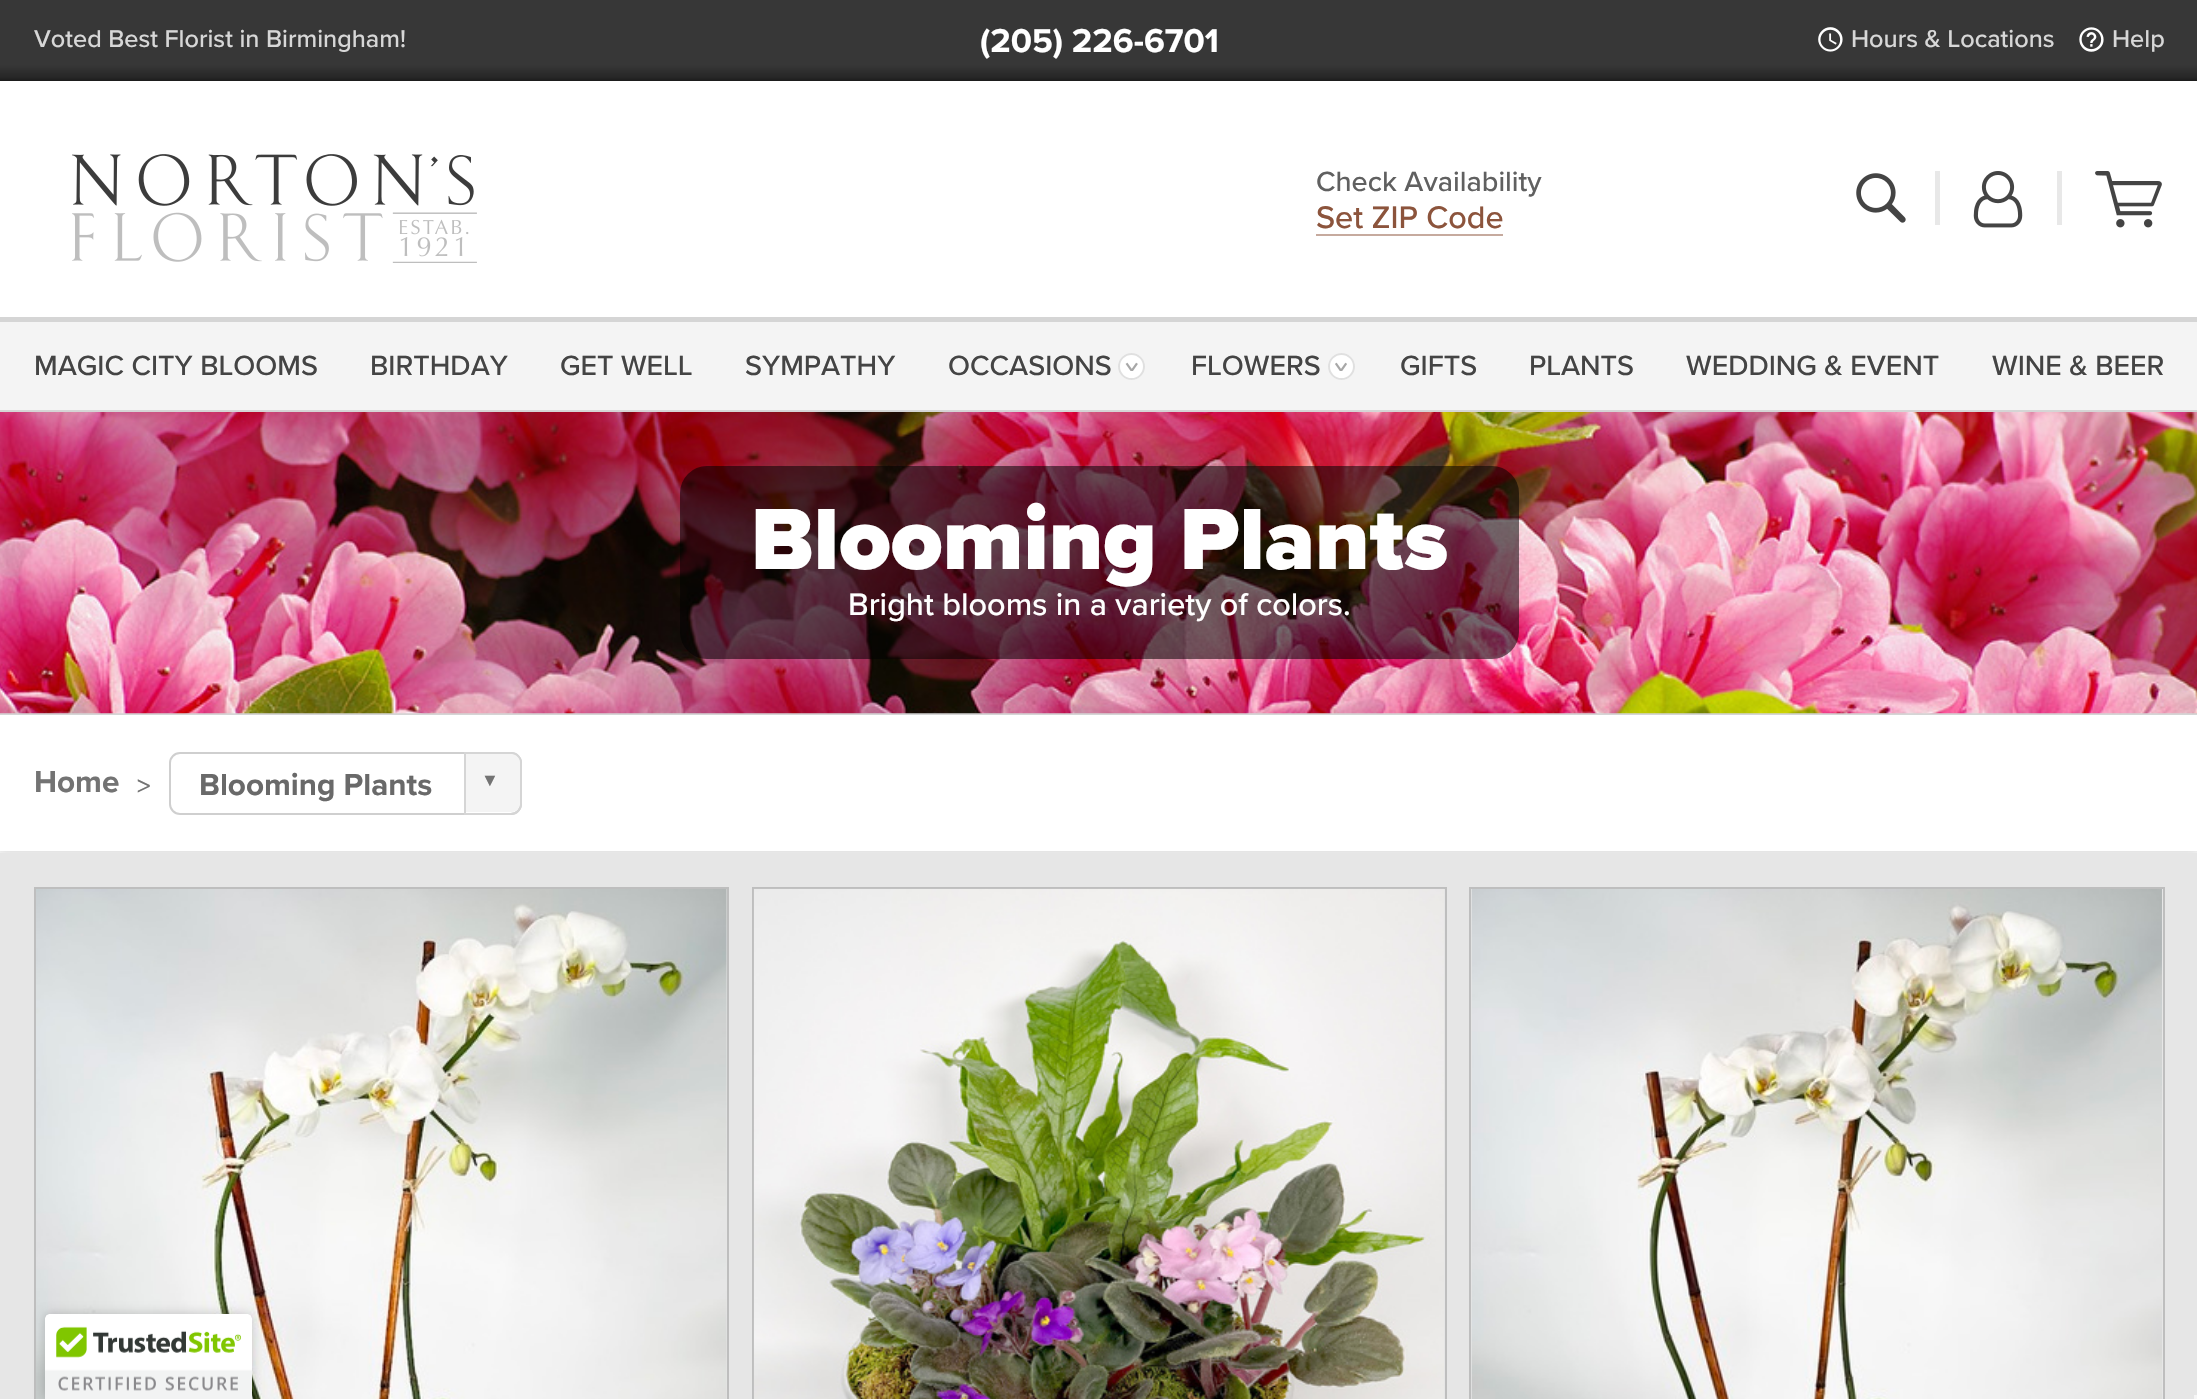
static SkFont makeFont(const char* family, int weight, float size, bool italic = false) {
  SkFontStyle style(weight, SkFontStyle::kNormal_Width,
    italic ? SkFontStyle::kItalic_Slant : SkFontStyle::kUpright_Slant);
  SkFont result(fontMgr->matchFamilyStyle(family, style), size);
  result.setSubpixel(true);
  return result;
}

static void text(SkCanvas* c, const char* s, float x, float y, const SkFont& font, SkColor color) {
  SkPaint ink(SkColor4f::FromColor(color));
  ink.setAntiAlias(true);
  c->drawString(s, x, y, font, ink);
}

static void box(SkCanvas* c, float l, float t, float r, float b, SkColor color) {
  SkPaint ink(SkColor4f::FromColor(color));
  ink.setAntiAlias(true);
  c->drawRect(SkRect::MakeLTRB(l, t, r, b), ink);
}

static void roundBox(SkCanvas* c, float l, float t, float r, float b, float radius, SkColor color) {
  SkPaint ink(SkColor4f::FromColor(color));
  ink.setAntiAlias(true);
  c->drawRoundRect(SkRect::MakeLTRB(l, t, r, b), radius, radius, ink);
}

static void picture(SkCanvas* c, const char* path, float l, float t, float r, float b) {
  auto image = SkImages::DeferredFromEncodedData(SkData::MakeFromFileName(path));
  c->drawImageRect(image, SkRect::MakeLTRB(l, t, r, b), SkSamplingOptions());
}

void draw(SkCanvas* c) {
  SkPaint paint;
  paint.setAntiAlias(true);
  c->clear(0xfff4f4f4);
  box(c, 0, 81, 2197, 317, 0xffffffff);
  box(c, 0, 0, 2197, 65, 0xff373737);
  SkFont face1 = makeFont("Proxima Nova", 500, 25.25f);
  text(c, "Voted Best Florist in Birmingham!", 34, 47, face1, 0xffd7d7d7);
  SkFont face2 = makeFont("Proxima Nova", 700, 34.25f);
  text(c, "(205) 226-6701", 980, 52, face2, 0xffffffff);
  picture(c, "img_01.png", 1818, 27, 1843, 52);
  text(c, "Hours & Locations", 1851, 47, face1, 0xffd7d7d7);
  picture(c, "img_02.png", 2079, 27, 2104, 52);
  text(c, "Help", 2112, 47, face1, 0xffd7d7d7);
  {
    const SkColor colors[] = {0xff373737, 0xff2c2c2c, 0xff272727, 0xff1c1c1c};
    const float stops[] = {0, 0.5f, 0.75f, 1};
    const SkPoint ends[] = {{1099, 65}, {1099, 81}};
    paint.setShader(SkGradientShader::MakeLinear(ends, colors, stops, 4, SkTileMode::kClamp));
    paint.setAlpha(255);
  }
  c->drawRect(SkRect::MakeLTRB(0, 65, 2197, 81), paint);
  picture(c, "img_03.png", 72, 154, 477, 263);
  SkFont face3 = makeFont("Proxima Nova", 500, 28.75f);
  text(c, "Check Availability", 1316, 191, face3, 0xff606060);
  box(c, 1316, 234, 1503, 236, 0xffc6aa9e);
  SkFont face4 = makeFont("Proxima Nova", 500, 32.4f);
  text(c, "Set ZIP Code", 1316, 228, face4, 0xff8c543c);
  picture(c, "img_04.png", 1856, 173, 1906, 223);
  box(c, 1935, 171, 1940, 225, 0xffe8e8e8);
  picture(c, "img_05.png", 1973, 171, 2023, 228);
  box(c, 2057, 171, 2062, 225, 0xffe8e8e8);
  picture(c, "img_06.png", 2095, 171, 2162, 228);
  box(c, 0, 317, 2197, 322, 0xffd5d5d5);
  box(c, 0, 410, 2197, 412, 0xffd5d5d5);
  text(c, "MAGIC CITY BLOOMS", 34, 375, face3, 0xff444444);
  text(c, "BIRTHDAY", 370, 375, face3, 0xff444444);
  text(c, "GET WELL", 560, 375, face3, 0xff444444);
  text(c, "SYMPATHY", 745, 375, face3, 0xff444444);
  text(c, "OCCASIONS", 948, 375, face3, 0xff444444);
  paint.setShader(nullptr);
  paint.setColor(0xffffffff);
  c->drawCircle(1131.5f, 366.5f, 13.5f, paint);
  picture(c, "img_07.png", 1125, 362, 1138, 371);
  paint.setStyle(SkPaint::kStroke_Style);
  paint.setStrokeWidth(2);
  paint.setColor(0xbfd5d5d5);
  c->drawCircle(1131.5f, 366.5f, 12.5f, paint);
  text(c, "FLOWERS", 1191, 375, face3, 0xff444444);
  paint.setStyle(SkPaint::kFill_Style);
  paint.setColor(0xffffffff);
  c->drawCircle(1341.5f, 366.5f, 13.5f, paint);
  picture(c, "img_08.png", 1335, 362, 1347, 371);
  paint.setStyle(SkPaint::kStroke_Style);
  paint.setColor(0xbfd5d5d5);
  c->drawCircle(1341.5f, 366.5f, 12.5f, paint);
  text(c, "GIFTS", 1400, 375, face3, 0xff444444);
  text(c, "PLANTS", 1529, 375, face3, 0xff444444);
  text(c, "WEDDING & EVENT", 1686, 375, face3, 0xff444444);
  text(c, "WINE & BEER", 1992, 375, face3, 0xff444444);
  paint.setStyle(SkPaint::kFill_Style);
  paint.setColor(0x1a0d0d0d);
  paint.setMaskFilter(SkMaskFilter::MakeBlur(kNormal_SkBlurStyle, 4.5f));
  c->drawRect(SkRect::MakeLTRB(0, 716, 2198, 853), paint);
  paint.setMaskFilter(nullptr);
  box(c, 0, 713, 2197, 715, 0xffd5d5d5);
  picture(c, "img_09.png", 0, 412, 2197, 714);
  roundBox(c, 680, 466, 1519, 659, 27, 0x8a000000);
  SkFont face5 = makeFont("Proxima Nova", 900, 90);
  text(c, "Blooming Plants", 751, 569, face5, 0xffffffff);
  text(c, "Bright blooms in a variety of colors.", 848, 615, face4, 0xffffffff);
  box(c, 0, 715, 2197, 851, 0xffffffff);
  SkFont face6 = makeFont("Proxima Nova", 700, 31.5f);
  text(c, "Home", 34, 792, face6, 0xff737373);
  SkFont face7 = makeFont("Proxima Nova", 500, 27);
  text(c, ">", 137, 795, face7, 0xff737373);
  paint.setStyle(SkPaint::kStroke_Style);
  paint.setColor(0xffcfcfcf);
  c->drawRoundRect(SkRect::MakeLTRB(170, 753, 521, 814), 10, 10, paint);
  text(c, "Blooming Plants", 199, 795, face6, 0xff696969);
  paint.setColor(0xffd5d5d5);
  c->drawPath(SkPathBuilder().moveTo(465, 753).lineTo(511, 753).cubicTo(516.5f, 753, 521, 757.5f, 521, 763).lineTo(521, 804).cubicTo(521, 809.5f, 516.5f, 814, 511, 814).lineTo(465, 814).close().detach(), paint);
  paint.setStyle(SkPaint::kFill_Style);
  paint.setColor(0xfff4f4f4);
  c->drawPath(SkPathBuilder().moveTo(466, 754).lineTo(511, 754).cubicTo(516, 754, 520, 758, 520, 763).lineTo(520, 803).cubicTo(520, 808, 516, 812, 511, 812).lineTo(466, 812).close().detach(), paint);
  SkFont face8 = makeFont("Liberation Sans", 700, 18);
  text(c, "▼", 481, 786, face8, 0xff737373);
  box(c, 0, 853, 2197, 1399, 0xffe6e6e6);
  paint.setStyle(SkPaint::kStroke_Style);
  paint.setColor(0xffbebebe);
  c->drawRect(SkRect::MakeLTRB(35, 888, 728, 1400), paint);
  picture(c, "img_10.png", 36, 889, 727, 1399);
  c->drawRect(SkRect::MakeLTRB(753, 888, 1446, 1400), paint);
  picture(c, "img_11.png", 753, 888, 1444, 1399);
  c->drawRect(SkRect::MakeLTRB(1470, 888, 2164, 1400), paint);
  picture(c, "img_12.png", 1471, 889, 2162, 1399);
  paint.setStyle(SkPaint::kFill_Style);
  paint.setColor(0x33000000);
  paint.setMaskFilter(SkMaskFilter::MakeBlur(kNormal_SkBlurStyle, 5.5f));
  c->drawRoundRect(SkRect::MakeLTRB(45, 1314, 252, 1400), 5, 5, paint);
  paint.setMaskFilter(nullptr);
  picture(c, "img_13.png", 45, 1314, 252, 1399);
  box(c, 2194, 1395, 2197, 1399, 0xfff5f5f5);
}
